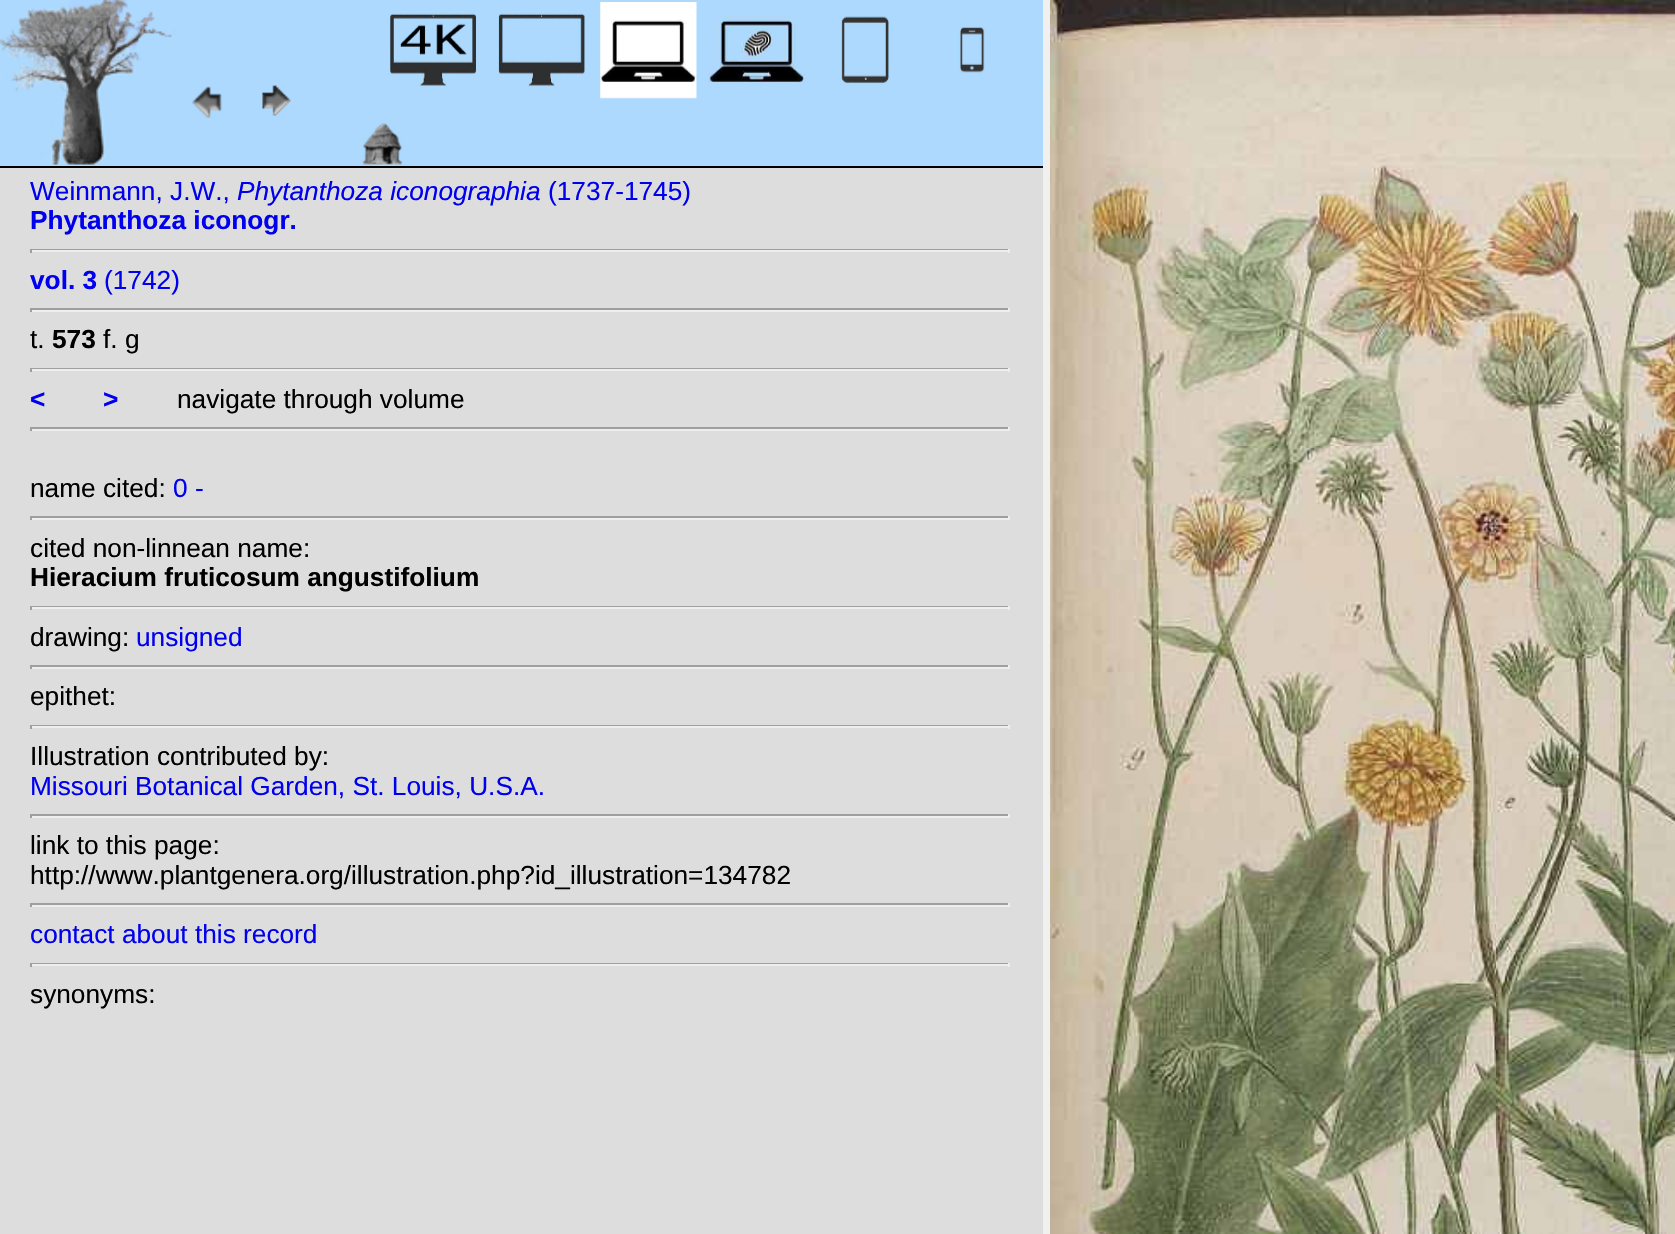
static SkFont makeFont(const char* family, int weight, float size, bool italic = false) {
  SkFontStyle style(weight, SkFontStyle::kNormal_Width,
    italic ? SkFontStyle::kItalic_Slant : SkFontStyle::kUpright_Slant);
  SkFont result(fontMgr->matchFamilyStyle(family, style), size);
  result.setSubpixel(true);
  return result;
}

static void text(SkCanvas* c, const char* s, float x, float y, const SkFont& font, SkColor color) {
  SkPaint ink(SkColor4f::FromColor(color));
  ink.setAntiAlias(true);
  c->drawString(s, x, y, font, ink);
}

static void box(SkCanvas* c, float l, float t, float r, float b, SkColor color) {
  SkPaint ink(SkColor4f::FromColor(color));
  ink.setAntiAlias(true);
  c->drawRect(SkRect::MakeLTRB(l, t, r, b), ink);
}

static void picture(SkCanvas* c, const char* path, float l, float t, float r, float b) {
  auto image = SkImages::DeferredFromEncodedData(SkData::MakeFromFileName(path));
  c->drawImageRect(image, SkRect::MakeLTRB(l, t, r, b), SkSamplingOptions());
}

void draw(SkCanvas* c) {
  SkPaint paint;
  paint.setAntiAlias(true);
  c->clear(0xfff0f0f0);
  box(c, 0, 168, 1043, 1234, 0xffdddddd);
  box(c, 0, 0, 1043, 166, 0xffadd9fe);
  box(c, 0, 166, 1043, 168, 0xff000000);
  picture(c, "img_01.png", 0, 0, 175, 165);
  picture(c, "img_02.png", 191, 86, 222, 119);
  picture(c, "img_03.png", 262, 85, 291, 116);
  picture(c, "img_04.png", 388, 13, 477, 87);
  picture(c, "img_05.png", 498, 13, 585, 87);
  picture(c, "img_06.png", 600, 2, 697, 99);
  picture(c, "img_07.png", 708, 16, 805, 83);
  picture(c, "img_08.png", 841, 16, 889, 84);
  picture(c, "img_09.png", 958, 27, 985, 73);
  picture(c, "img_10.png", 362, 123, 403, 165);
  SkFont face1 = makeFont("Liberation Sans", 400, 26.25f);
  text(c, "Weinmann, J.W.,", 30, 200, face1, 0xff0000ee);
  SkFont face2 = makeFont("Liberation Sans", 400, 26.25f, true);
  text(c, "Phytanthoza iconographia", 237, 200, face2, 0xff0000ee);
  text(c, "(1737-1745)", 548, 200, face1, 0xff0000ee);
  SkFont face3 = makeFont("Liberation Sans", 700, 26.25f);
  text(c, "Phytanthoza iconogr.", 30, 229, face3, 0xff0000ee);
  box(c, 30, 249, 1010, 250, 0xff9f9f9f);
  box(c, 1008, 249, 1010, 253, 0xffeeeeee);
  box(c, 30, 250, 1010, 252, 0xffeeeeee);
  box(c, 30, 249, 32, 253, 0xff9f9f9f);
  text(c, "vol. 3", 30, 289, face3, 0xff0000ee);
  text(c, "(1742)", 104, 289, face1, 0xff0000ee);
  box(c, 30, 308, 1010, 310, 0xff9f9f9f);
  box(c, 1008, 308, 1010, 312, 0xffeeeeee);
  box(c, 30, 310, 1010, 312, 0xffeeeeee);
  box(c, 30, 308, 32, 312, 0xff9f9f9f);
  text(c, "t.", 30, 348, face1, 0xff000000);
  text(c, "573", 52, 348, face3, 0xff000000);
  text(c, "f. g", 103, 348, face1, 0xff000000);
  box(c, 30, 368, 1010, 369, 0xff9f9f9f);
  box(c, 1008, 368, 1010, 372, 0xffeeeeee);
  box(c, 30, 369, 1010, 371, 0xffeeeeee);
  box(c, 30, 368, 32, 372, 0xff9f9f9f);
  text(c, "<", 30, 408, face3, 0xff0000ee);
  text(c, ">", 103, 408, face3, 0xff0000ee);
  text(c, "navigate through volume", 177, 408, face1, 0xff000000);
  box(c, 30, 427, 1010, 429, 0xff9f9f9f);
  box(c, 1008, 427, 1010, 431, 0xffeeeeee);
  box(c, 30, 429, 1010, 431, 0xffeeeeee);
  box(c, 30, 427, 32, 431, 0xff9f9f9f);
  text(c, "name cited:", 30, 497, face1, 0xff000000);
  text(c, "0 -", 173, 497, face1, 0xff0000ee);
  box(c, 30, 516, 1010, 518, 0xff9f9f9f);
  box(c, 1008, 516, 1010, 520, 0xffeeeeee);
  box(c, 30, 518, 1010, 520, 0xffeeeeee);
  box(c, 30, 516, 32, 520, 0xff9f9f9f);
  text(c, "cited non-linnean name:", 30, 557, face1, 0xff000000);
  text(c, "Hieracium fruticosum angustifolium", 30, 586, face3, 0xff000000);
  box(c, 30, 606, 1010, 607, 0xff9f9f9f);
  box(c, 1008, 606, 1010, 610, 0xffeeeeee);
  box(c, 30, 607, 1010, 609, 0xffeeeeee);
  box(c, 30, 606, 32, 610, 0xff9f9f9f);
  text(c, "drawing:", 30, 646, face1, 0xff000000);
  text(c, "unsigned", 136, 646, face1, 0xff0000ee);
  box(c, 30, 665, 1010, 667, 0xff9f9f9f);
  box(c, 1008, 665, 1010, 669, 0xffeeeeee);
  box(c, 30, 667, 1010, 669, 0xffeeeeee);
  box(c, 30, 665, 32, 669, 0xff9f9f9f);
  text(c, "epithet:", 30, 705, face1, 0xff000000);
  box(c, 30, 725, 1010, 726, 0xff9f9f9f);
  box(c, 1008, 725, 1010, 729, 0xffeeeeee);
  box(c, 30, 726, 1010, 728, 0xffeeeeee);
  box(c, 30, 725, 32, 729, 0xff9f9f9f);
  text(c, "Illustration contributed by:", 30, 765, face1, 0xff000000);
  text(c, "Missouri Botanical Garden, St. Louis, U.S.A.", 30, 795, face1, 0xff0000ee);
  box(c, 30, 814, 1010, 816, 0xff9f9f9f);
  box(c, 1008, 814, 1010, 818, 0xffeeeeee);
  box(c, 30, 816, 1010, 818, 0xffeeeeee);
  box(c, 30, 814, 32, 818, 0xff9f9f9f);
  text(c, "link to this page:", 30, 854, face1, 0xff000000);
  text(c, "http://www.plantgenera.org/illustration.php?id_illustration=134782", 30, 884, face1, 0xff000000);
  box(c, 30, 903, 1010, 905, 0xff9f9f9f);
  box(c, 1008, 903, 1010, 907, 0xffeeeeee);
  box(c, 30, 905, 1010, 907, 0xffeeeeee);
  box(c, 30, 903, 32, 907, 0xff9f9f9f);
  text(c, "contact about this record", 30, 943, face1, 0xff0000ee);
  box(c, 30, 963, 1010, 964, 0xff9f9f9f);
  box(c, 1008, 963, 1010, 967, 0xffeeeeee);
  box(c, 30, 964, 1010, 966, 0xffeeeeee);
  box(c, 30, 963, 32, 967, 0xff9f9f9f);
  text(c, "synonyms:", 30, 1003, face1, 0xff000000);
  picture(c, "img_11.png", 1050, 0, 1675, 1234);
}
